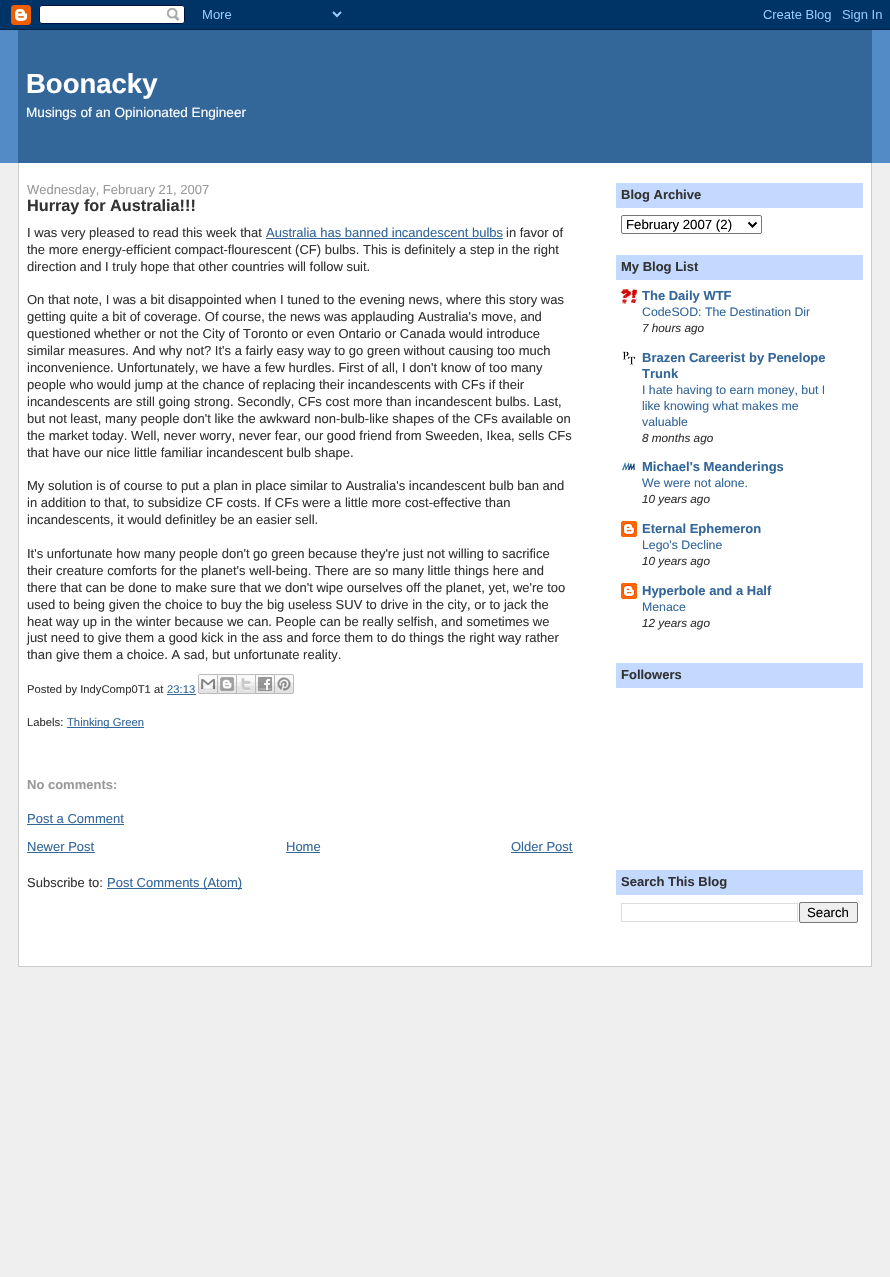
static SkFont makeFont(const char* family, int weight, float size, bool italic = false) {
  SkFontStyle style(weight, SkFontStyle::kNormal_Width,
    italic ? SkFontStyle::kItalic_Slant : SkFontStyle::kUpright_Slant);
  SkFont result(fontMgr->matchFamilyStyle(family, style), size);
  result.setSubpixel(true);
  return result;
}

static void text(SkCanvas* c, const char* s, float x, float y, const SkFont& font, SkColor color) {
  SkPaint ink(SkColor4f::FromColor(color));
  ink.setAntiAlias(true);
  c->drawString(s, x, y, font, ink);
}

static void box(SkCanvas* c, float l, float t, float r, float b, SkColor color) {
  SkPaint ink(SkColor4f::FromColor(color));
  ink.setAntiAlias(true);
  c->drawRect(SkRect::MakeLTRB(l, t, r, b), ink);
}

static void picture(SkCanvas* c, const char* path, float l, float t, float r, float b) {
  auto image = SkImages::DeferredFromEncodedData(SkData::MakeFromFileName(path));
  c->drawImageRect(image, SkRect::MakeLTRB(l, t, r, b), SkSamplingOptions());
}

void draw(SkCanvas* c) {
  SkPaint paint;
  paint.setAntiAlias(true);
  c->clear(0xffefefef);
  picture(c, "img_01.png", 0, 0, 890, 30);
  box(c, 0, 30, 890, 163, 0xff528bc5);
  box(c, 18, 30, 872, 163, 0xff336699);
  SkFont face1 = makeFont("Liberation Sans", 700, 27.5f);
  text(c, "Boonacky", 26, 93, face1, 0xffffffff);
  SkFont face2 = makeFont("Liberation Sans", 400, 13.6f);
  text(c, "Musings of an Opinionated Engineer", 26, 117, face2, 0xffffffff);
  box(c, 19, 163, 871, 966, 0xffffffff);
  box(c, 871, 163, 872, 967, 0xffcccccc);
  box(c, 18, 966, 872, 967, 0xffcccccc);
  box(c, 18, 163, 19, 967, 0xffcccccc);
  SkFont face3 = makeFont("Liberation Sans", 400, 13);
  text(c, "Wednesday, February 21, 2007", 27, 194, face3, 0xff999999);
  SkFont face4 = makeFont("Liberation Sans", 700, 16.25f);
  text(c, "Hurray for Australia!!!", 27, 211, face4, 0xff333333);
  text(c, "I was very pleased to read this week that", 27, 237, face3, 0xff333333);
  text(c, "Australia has banned incandescent bulbs", 266, 237, face3, 0xff336699);
  box(c, 266, 238, 503, 239, 0xff336699);
  text(c, "in favor of", 506, 237, face3, 0xff333333);
  text(c, "the more energy-efficient compact-flourescent (CF) bulbs. This is definitely a step in the right", 27, 254, face3, 0xff333333);
  text(c, "direction and I truly hope that other countries will follow suit.", 27, 271, face3, 0xff333333);
  text(c, "On that note, I was a bit disappointed when I tuned to the evening news, where this story was", 27, 304, face3, 0xff333333);
  text(c, "getting quite a bit of coverage. Of course, the news was applauding Australia's move, and", 27, 321, face3, 0xff333333);
  text(c, "questioned whether or not the City of Toronto or even Ontario or Canada would introduce", 27, 338, face3, 0xff333333);
  text(c, "similar measures. And why not? It's a fairly easy way to go green without causing too much", 27, 355, face3, 0xff333333);
  text(c, "inconvenience. Unfortunately, we have a few hurdles. First of all, I don't know of too many", 27, 372, face3, 0xff333333);
  text(c, "people who would jump at the chance of replacing their incandescents with CFs if their", 27, 389, face3, 0xff333333);
  text(c, "incandescents are still going strong. Secondly, CFs cost more than incandescent bulbs. Last,", 27, 406, face3, 0xff333333);
  text(c, "but not least, many people don't like the awkward non-bulb-like shapes of the CFs available on", 27, 423, face3, 0xff333333);
  text(c, "the market today. Well, never worry, never fear, our good friend from Sweeden, Ikea, sells CFs", 27, 440, face3, 0xff333333);
  text(c, "that have our nice little familiar incandescent bulb shape.", 27, 457, face3, 0xff333333);
  text(c, "My solution is of course to put a plan in place similar to Australia's incandescent bulb ban and", 27, 490, face3, 0xff333333);
  text(c, "in addition to that, to subsidize CF costs. If CFs were a little more cost-effective than", 27, 507, face3, 0xff333333);
  text(c, "incandescents, it would definitley be an easier sell.", 27, 524, face3, 0xff333333);
  text(c, "It's unfortunate how many people don't go green because they're just not willing to sacrifice", 27, 558, face3, 0xff333333);
  text(c, "their creature comforts for the planet's well-being. There are so many little things here and", 27, 575, face3, 0xff333333);
  text(c, "there that can be done to make sure that we don't wipe ourselves off the planet, yet, we're too", 27, 592, face3, 0xff333333);
  text(c, "used to being given the choice to buy the big useless SUV to drive in the city, or to jack the", 27, 609, face3, 0xff333333);
  text(c, "heat way up in the winter because we can. People can be really selfish, and sometimes we", 27, 626, face3, 0xff333333);
  text(c, "just need to give them a good kick in the ass and force them to do things the right way rather", 27, 642, face3, 0xff333333);
  text(c, "than give them a choice. A sad, but unfortunate reality.", 27, 659, face3, 0xff333333);
  SkFont face5 = makeFont("Liberation Sans", 400, 11.25f);
  text(c, "Posted by IndyComp0T1 at", 27, 693, face5, 0xff333333);
  text(c, "23:13", 167, 693, face5, 0xff336699);
  box(c, 167, 694, 196, 695, 0xff336699);
  picture(c, "img_02.png", 198, 674, 218, 694);
  picture(c, "img_03.png", 218, 674, 237, 694);
  picture(c, "img_04.png", 237, 674, 256, 694);
  picture(c, "img_05.png", 256, 674, 275, 694);
  picture(c, "img_06.png", 275, 674, 294, 694);
  text(c, "Labels:", 27, 726, face5, 0xff333333);
  box(c, 67, 727, 144, 728, 0xff336699);
  text(c, "Thinking Green", 67, 726, face5, 0xff336699);
  SkFont face6 = makeFont("Liberation Sans", 700, 13);
  text(c, "No comments:", 27, 789, face6, 0xff999999);
  text(c, "Post a Comment", 27, 823, face3, 0xff336699);
  box(c, 27, 824, 124, 825, 0xff336699);
  text(c, "Newer Post", 27, 851, face3, 0xff336699);
  box(c, 27, 852, 95, 853, 0xff336699);
  text(c, "Home", 286, 851, face3, 0xff336699);
  box(c, 286, 852, 320, 853, 0xff336699);
  text(c, "Older Post", 511, 851, face3, 0xff336699);
  box(c, 511, 852, 573, 853, 0xff336699);
  text(c, "Subscribe to:", 27, 887, face3, 0xff333333);
  box(c, 107, 888, 242, 889, 0xff336699);
  text(c, "Post Comments (Atom)", 107, 887, face3, 0xff336699);
  box(c, 616, 183, 863, 208, 0xffc3d9ff);
  text(c, "Blog Archive", 621, 199, face6, 0xff333333);
  paint.setStyle(SkPaint::kStroke_Style);
  paint.setStrokeWidth(1);
  paint.setColor(0xff767676);
  c->drawRoundRect(SkRect::MakeLTRB(621.5f, 215.5f, 761.5f, 233.5f), 1.5f, 1.5f, paint);
  paint.setStrokeWidth(2);
  paint.setColor(0xff000000);
  c->drawPath(SkPathBuilder().moveTo(748.5f, 222.5f).lineTo(752.5f, 226.5f).lineTo(756.5f, 222.5f).detach(), paint);
  SkFont face7 = makeFont("Liberation Sans", 400, 13.25f);
  text(c, "February 2007 (2)", 626, 229, face7, 0xff000000);
  box(c, 616, 255, 863, 280, 0xffc3d9ff);
  text(c, "My Blog List", 621, 271, face6, 0xff333333);
  picture(c, "img_07.png", 621, 289, 637, 304);
  text(c, "The Daily WTF", 642, 300, face6, 0xff336699);
  SkFont face8 = makeFont("Liberation Sans", 400, 12.3f);
  text(c, "CodeSOD: The Destination Dir", 642, 316, face8, 0xff336699);
  SkFont face9 = makeFont("Liberation Sans", 400, 11.75f, true);
  text(c, "7 hours ago", 642, 332, face9, 0xff333333);
  picture(c, "img_08.png", 622, 351, 635, 365);
  text(c, "Brazen Careerist by Penelope", 642, 362, face6, 0xff336699);
  text(c, "Trunk", 642, 378, face6, 0xff336699);
  text(c, "I hate having to earn money, but I", 642, 394, face8, 0xff336699);
  text(c, "like knowing what makes me", 642, 410, face8, 0xff336699);
  text(c, "valuable", 642, 426, face8, 0xff336699);
  text(c, "8 months ago", 642, 442, face9, 0xff333333);
  picture(c, "img_09.png", 621, 461, 637, 471);
  text(c, "Michael's Meanderings", 642, 471, face6, 0xff336699);
  text(c, "We were not alone.", 642, 487, face8, 0xff336699);
  text(c, "10 years ago", 642, 503, face9, 0xff333333);
  picture(c, "img_10.png", 621, 521, 637, 537);
  text(c, "Eternal Ephemeron", 642, 533, face6, 0xff336699);
  text(c, "Lego's Decline", 642, 549, face8, 0xff336699);
  text(c, "10 years ago", 642, 565, face9, 0xff333333);
  picture(c, "img_10.png", 621, 583, 637, 599);
  text(c, "Hyperbole and a Half", 642, 595, face6, 0xff336699);
  text(c, "Menace", 642, 611, face8, 0xff336699);
  text(c, "12 years ago", 642, 627, face9, 0xff333333);
  box(c, 616, 663, 863, 688, 0xffc3d9ff);
  text(c, "Followers", 621, 679, face6, 0xff333333);
  box(c, 616, 870, 863, 895, 0xffc3d9ff);
  text(c, "Search This Blog", 621, 886, face6, 0xff333333);
  paint.setStrokeWidth(1);
  paint.setColor(0xffdddddd);
  c->drawRect(SkRect::MakeLTRB(621.5f, 903.5f, 797.5f, 921.5f), paint);
  paint.setStyle(SkPaint::kFill_Style);
  paint.setColor(0xffefefef);
  c->drawRoundRect(SkRect::MakeLTRB(799.5f, 902.5f, 857.5f, 922.5f), 1.5f, 1.5f, paint);
  paint.setStyle(SkPaint::kStroke_Style);
  paint.setColor(0xff767676);
  c->drawRoundRect(SkRect::MakeLTRB(799.5f, 902.5f, 857.5f, 922.5f), 1.5f, 1.5f, paint);
  text(c, "Search", 807, 917, face7, 0xff000000);
}
